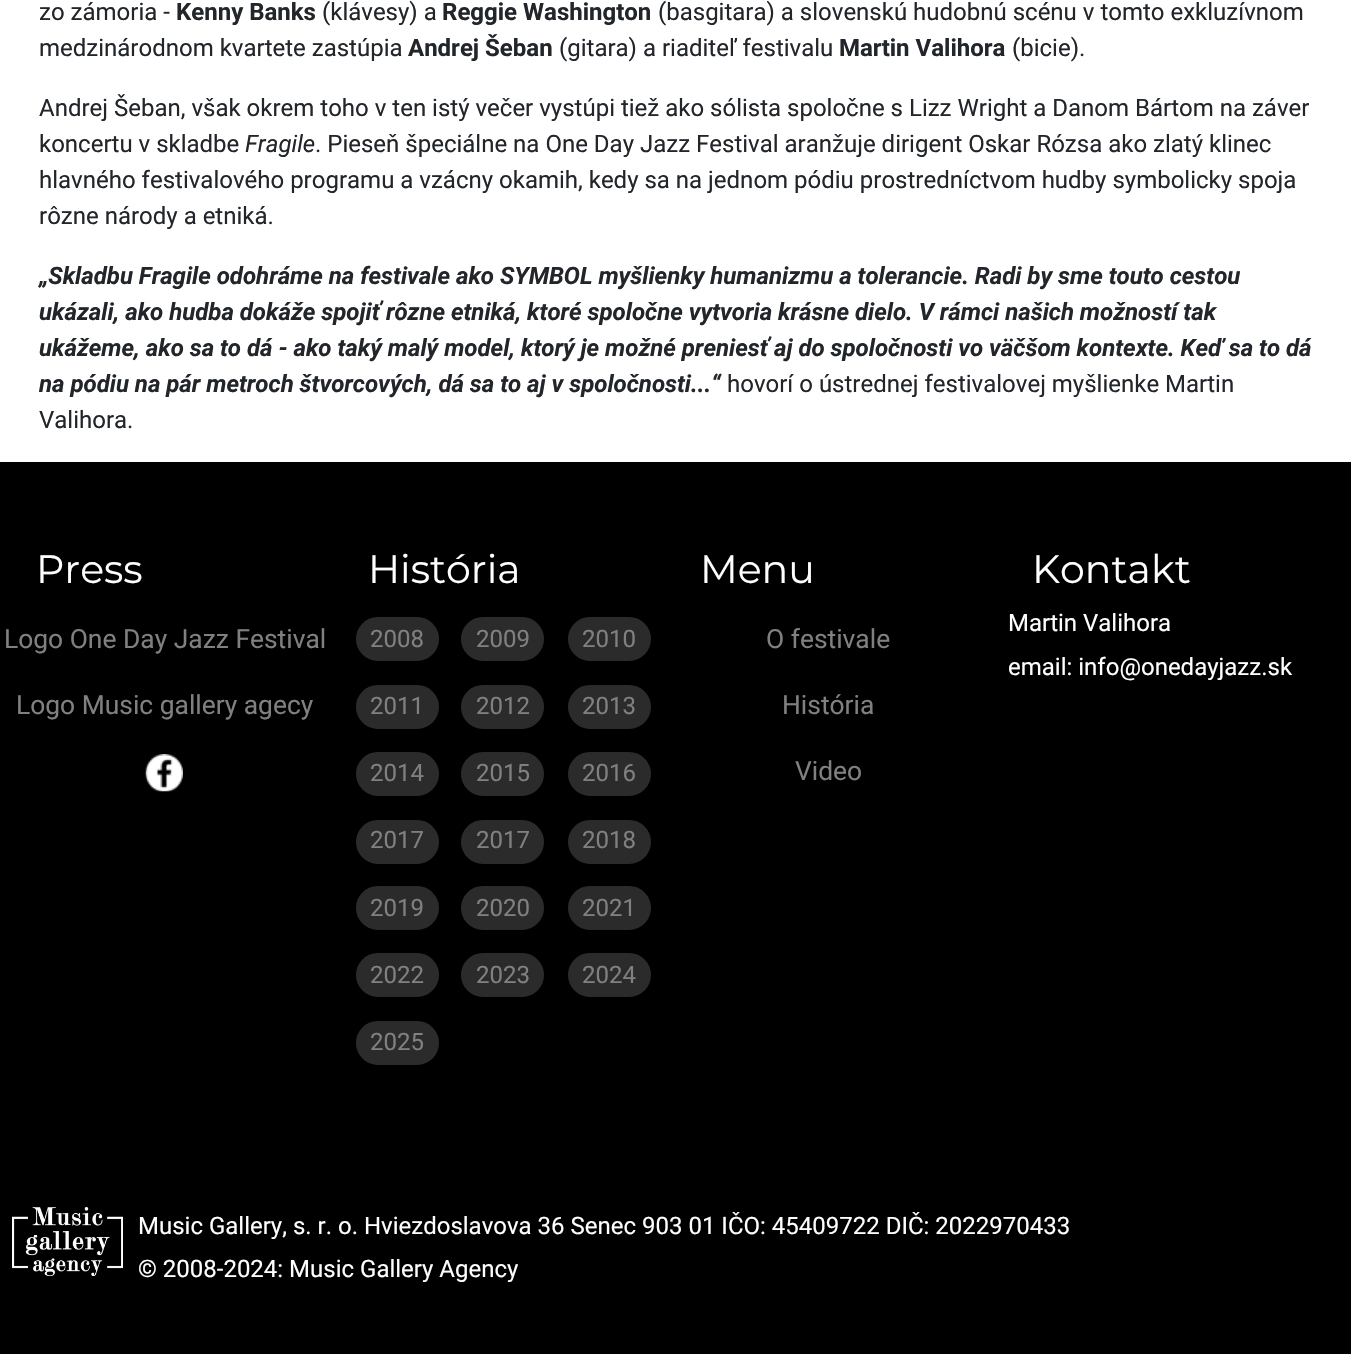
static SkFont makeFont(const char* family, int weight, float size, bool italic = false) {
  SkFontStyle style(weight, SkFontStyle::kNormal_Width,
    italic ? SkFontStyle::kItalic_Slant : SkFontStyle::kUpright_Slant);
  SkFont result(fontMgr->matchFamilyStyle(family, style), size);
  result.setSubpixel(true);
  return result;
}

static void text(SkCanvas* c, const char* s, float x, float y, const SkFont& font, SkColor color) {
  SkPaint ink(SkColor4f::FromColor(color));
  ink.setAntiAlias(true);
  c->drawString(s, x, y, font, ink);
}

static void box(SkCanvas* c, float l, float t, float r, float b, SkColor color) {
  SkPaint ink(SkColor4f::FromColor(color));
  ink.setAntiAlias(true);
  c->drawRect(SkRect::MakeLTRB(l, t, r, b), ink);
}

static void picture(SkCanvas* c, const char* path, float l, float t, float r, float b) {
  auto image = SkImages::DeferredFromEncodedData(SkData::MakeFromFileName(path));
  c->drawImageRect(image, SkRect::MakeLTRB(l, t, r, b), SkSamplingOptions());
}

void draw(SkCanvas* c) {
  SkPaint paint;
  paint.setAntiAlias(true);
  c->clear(0xffffffff);
  SkFont face1 = makeFont("Roboto", 400, 24);
  text(c, "zo zámoria -", 39, 20, face1, 0xff22262a);
  SkFont face2 = makeFont("Roboto", 700, 24);
  text(c, "Kenny Banks", 176, 20, face2, 0xff22262a);
  text(c, "(klávesy) a", 322, 20, face1, 0xff22262a);
  text(c, "Reggie Washington", 442, 20, face2, 0xff22262a);
  text(c, "(basgitara) a slovenskú hudobnú scénu v tomto exkluzívnom", 658, 20, face1, 0xff22262a);
  text(c, "medzinárodnom kvartete zastúpia", 39, 56, face1, 0xff22262a);
  text(c, "Andrej Šeban", 408, 56, face2, 0xff22262a);
  text(c, "(gitara) a riaditeľ festivalu", 559, 56, face1, 0xff22262a);
  text(c, "Martin Valihora", 839, 56, face2, 0xff22262a);
  text(c, "(bicie).", 1012, 56, face1, 0xff22262a);
  text(c, "Andrej Šeban, však okrem toho v ten istý večer vystúpi tiež ako sólista spoločne s Lizz Wright a Danom Bártom na záver", 39, 116, face1, 0xff22262a);
  text(c, "koncertu v skladbe", 39, 152, face1, 0xff22262a);
  SkFont face3 = makeFont("Roboto", 400, 24, true);
  text(c, "Fragile", 245, 152, face3, 0xff22262a);
  text(c, ". Pieseň špeciálne na One Day Jazz Festival aranžuje dirigent Oskar Rózsa ako zlatý klinec", 315, 152, face1, 0xff22262a);
  text(c, "hlavného festivalového programu a vzácny okamih, kedy sa na jednom pódiu prostredníctvom hudby symbolicky spoja", 39, 188, face1, 0xff22262a);
  text(c, "rôzne národy a etniká.", 39, 224, face1, 0xff22262a);
  SkFont face4 = makeFont("Roboto", 700, 24, true);
  text(c, "„Skladbu Fragile odohráme na festivale ako SYMBOL myšlienky humanizmu a tolerancie. Radi by sme touto cestou", 39, 284, face4, 0xff22262a);
  text(c, "ukázali, ako hudba dokáže spojiť rôzne etniká, ktoré spoločne vytvoria krásne dielo. V rámci našich možností tak", 39, 320, face4, 0xff22262a);
  text(c, "ukážeme, ako sa to dá - ako taký malý model, ktorý je možné preniesť aj do spoločnosti vo väčšom kontexte. Keď sa to dá", 39, 356, face4, 0xff22262a);
  text(c, "na pódiu na pár metroch štvorcových, dá sa to aj v spoločnosti...“", 39, 392, face4, 0xff22262a);
  text(c, "hovorí o ústrednej festivalovej myšlienke Martin", 727, 392, face1, 0xff22262a);
  text(c, "Valihora.", 39, 428, face1, 0xff22262a);
  box(c, 0, 462, 1351, 1354, 0xff000000);
  SkFont face5 = makeFont("Montserrat", 100, 39.5f);
  text(c, "Press", 36, 583, face5, 0xffffffff);
  SkFont face6 = makeFont("Roboto", 400, 26.4f);
  text(c, "Logo One Day Jazz Festival", 4, 648, face6, 0xff808080);
  text(c, "Logo Music gallery agecy", 16, 714, face6, 0xff808080);
  picture(c, "img_01.png", 145, 754, 183, 792);
  text(c, "História", 368, 583, face5, 0xffffffff);
  paint.setColor(0xff2b2b2b);
  c->drawRoundRect(SkRect::MakeLTRB(355, 616, 440, 662), 23, 23, paint);
  paint.setStyle(SkPaint::kStroke_Style);
  paint.setStrokeWidth(2);
  paint.setColor(0xff000000);
  c->drawRoundRect(SkRect::MakeLTRB(355, 616, 440, 662), 23, 23, paint);
  text(c, "2008", 370, 647, face1, 0xff808080);
  paint.setStyle(SkPaint::kFill_Style);
  paint.setColor(0xff2b2b2b);
  c->drawRoundRect(SkRect::MakeLTRB(460, 616, 545, 662), 23, 23, paint);
  paint.setStyle(SkPaint::kStroke_Style);
  paint.setColor(0xff000000);
  c->drawRoundRect(SkRect::MakeLTRB(460, 616, 545, 662), 23, 23, paint);
  text(c, "2009", 476, 647, face1, 0xff808080);
  paint.setStyle(SkPaint::kFill_Style);
  paint.setColor(0xff2b2b2b);
  c->drawRoundRect(SkRect::MakeLTRB(567, 616, 652, 662), 23, 23, paint);
  paint.setStyle(SkPaint::kStroke_Style);
  paint.setColor(0xff000000);
  c->drawRoundRect(SkRect::MakeLTRB(567, 616, 652, 662), 23, 23, paint);
  text(c, "2010", 582, 647, face1, 0xff808080);
  paint.setStyle(SkPaint::kFill_Style);
  paint.setColor(0xff2b2b2b);
  c->drawRoundRect(SkRect::MakeLTRB(355, 684, 440, 730), 23, 23, paint);
  paint.setStyle(SkPaint::kStroke_Style);
  paint.setColor(0xff000000);
  c->drawRoundRect(SkRect::MakeLTRB(355, 684, 440, 730), 23, 23, paint);
  text(c, "2011", 370, 714, face1, 0xff808080);
  paint.setStyle(SkPaint::kFill_Style);
  paint.setColor(0xff2b2b2b);
  c->drawRoundRect(SkRect::MakeLTRB(460, 684, 545, 730), 23, 23, paint);
  paint.setStyle(SkPaint::kStroke_Style);
  paint.setColor(0xff000000);
  c->drawRoundRect(SkRect::MakeLTRB(460, 684, 545, 730), 23, 23, paint);
  text(c, "2012", 476, 714, face1, 0xff808080);
  paint.setStyle(SkPaint::kFill_Style);
  paint.setColor(0xff2b2b2b);
  c->drawRoundRect(SkRect::MakeLTRB(567, 684, 652, 730), 23, 23, paint);
  paint.setStyle(SkPaint::kStroke_Style);
  paint.setColor(0xff000000);
  c->drawRoundRect(SkRect::MakeLTRB(567, 684, 652, 730), 23, 23, paint);
  text(c, "2013", 582, 714, face1, 0xff808080);
  paint.setStyle(SkPaint::kFill_Style);
  paint.setColor(0xff2b2b2b);
  c->drawRoundRect(SkRect::MakeLTRB(355, 751, 440, 797), 23, 23, paint);
  paint.setStyle(SkPaint::kStroke_Style);
  paint.setColor(0xff000000);
  c->drawRoundRect(SkRect::MakeLTRB(355, 751, 440, 797), 23, 23, paint);
  text(c, "2014", 370, 781, face1, 0xff808080);
  paint.setStyle(SkPaint::kFill_Style);
  paint.setColor(0xff2b2b2b);
  c->drawRoundRect(SkRect::MakeLTRB(460, 751, 545, 797), 23, 23, paint);
  paint.setStyle(SkPaint::kStroke_Style);
  paint.setColor(0xff000000);
  c->drawRoundRect(SkRect::MakeLTRB(460, 751, 545, 797), 23, 23, paint);
  text(c, "2015", 476, 781, face1, 0xff808080);
  paint.setStyle(SkPaint::kFill_Style);
  paint.setColor(0xff2b2b2b);
  c->drawRoundRect(SkRect::MakeLTRB(567, 751, 652, 797), 23, 23, paint);
  paint.setStyle(SkPaint::kStroke_Style);
  paint.setColor(0xff000000);
  c->drawRoundRect(SkRect::MakeLTRB(567, 751, 652, 797), 23, 23, paint);
  text(c, "2016", 582, 781, face1, 0xff808080);
  paint.setStyle(SkPaint::kFill_Style);
  paint.setColor(0xff2b2b2b);
  c->drawRoundRect(SkRect::MakeLTRB(355, 819, 440, 865), 23, 23, paint);
  paint.setStyle(SkPaint::kStroke_Style);
  paint.setColor(0xff000000);
  c->drawRoundRect(SkRect::MakeLTRB(355, 819, 440, 865), 23, 23, paint);
  text(c, "2017", 370, 848, face1, 0xff808080);
  paint.setStyle(SkPaint::kFill_Style);
  paint.setColor(0xff2b2b2b);
  c->drawRoundRect(SkRect::MakeLTRB(460, 819, 545, 865), 23, 23, paint);
  paint.setStyle(SkPaint::kStroke_Style);
  paint.setColor(0xff000000);
  c->drawRoundRect(SkRect::MakeLTRB(460, 819, 545, 865), 23, 23, paint);
  text(c, "2017", 476, 848, face1, 0xff808080);
  paint.setStyle(SkPaint::kFill_Style);
  paint.setColor(0xff2b2b2b);
  c->drawRoundRect(SkRect::MakeLTRB(567, 819, 652, 865), 23, 23, paint);
  paint.setStyle(SkPaint::kStroke_Style);
  paint.setColor(0xff000000);
  c->drawRoundRect(SkRect::MakeLTRB(567, 819, 652, 865), 23, 23, paint);
  text(c, "2018", 582, 848, face1, 0xff808080);
  paint.setStyle(SkPaint::kFill_Style);
  paint.setColor(0xff2b2b2b);
  c->drawRoundRect(SkRect::MakeLTRB(355, 885, 440, 931), 23, 23, paint);
  paint.setStyle(SkPaint::kStroke_Style);
  paint.setColor(0xff000000);
  c->drawRoundRect(SkRect::MakeLTRB(355, 885, 440, 931), 23, 23, paint);
  text(c, "2019", 370, 916, face1, 0xff808080);
  paint.setStyle(SkPaint::kFill_Style);
  paint.setColor(0xff2b2b2b);
  c->drawRoundRect(SkRect::MakeLTRB(460, 885, 545, 931), 23, 23, paint);
  paint.setStyle(SkPaint::kStroke_Style);
  paint.setColor(0xff000000);
  c->drawRoundRect(SkRect::MakeLTRB(460, 885, 545, 931), 23, 23, paint);
  text(c, "2020", 476, 916, face1, 0xff808080);
  paint.setStyle(SkPaint::kFill_Style);
  paint.setColor(0xff2b2b2b);
  c->drawRoundRect(SkRect::MakeLTRB(567, 885, 652, 931), 23, 23, paint);
  paint.setStyle(SkPaint::kStroke_Style);
  paint.setColor(0xff000000);
  c->drawRoundRect(SkRect::MakeLTRB(567, 885, 652, 931), 23, 23, paint);
  text(c, "2021", 582, 916, face1, 0xff808080);
  paint.setStyle(SkPaint::kFill_Style);
  paint.setColor(0xff2b2b2b);
  c->drawRoundRect(SkRect::MakeLTRB(355, 952, 440, 998), 23, 23, paint);
  paint.setStyle(SkPaint::kStroke_Style);
  paint.setColor(0xff000000);
  c->drawRoundRect(SkRect::MakeLTRB(355, 952, 440, 998), 23, 23, paint);
  text(c, "2022", 370, 983, face1, 0xff808080);
  paint.setStyle(SkPaint::kFill_Style);
  paint.setColor(0xff2b2b2b);
  c->drawRoundRect(SkRect::MakeLTRB(460, 952, 545, 998), 23, 23, paint);
  paint.setStyle(SkPaint::kStroke_Style);
  paint.setColor(0xff000000);
  c->drawRoundRect(SkRect::MakeLTRB(460, 952, 545, 998), 23, 23, paint);
  text(c, "2023", 476, 983, face1, 0xff808080);
  paint.setStyle(SkPaint::kFill_Style);
  paint.setColor(0xff2b2b2b);
  c->drawRoundRect(SkRect::MakeLTRB(567, 952, 652, 998), 23, 23, paint);
  paint.setStyle(SkPaint::kStroke_Style);
  paint.setColor(0xff000000);
  c->drawRoundRect(SkRect::MakeLTRB(567, 952, 652, 998), 23, 23, paint);
  text(c, "2024", 582, 983, face1, 0xff808080);
  paint.setStyle(SkPaint::kFill_Style);
  paint.setColor(0xff2b2b2b);
  c->drawRoundRect(SkRect::MakeLTRB(355, 1020, 440, 1066), 23, 23, paint);
  paint.setStyle(SkPaint::kStroke_Style);
  paint.setColor(0xff000000);
  c->drawRoundRect(SkRect::MakeLTRB(355, 1020, 440, 1066), 23, 23, paint);
  text(c, "2025", 370, 1050, face1, 0xff808080);
  text(c, "Menu", 700, 583, face5, 0xffffffff);
  text(c, "O festivale", 766, 648, face6, 0xff808080);
  text(c, "História", 782, 714, face6, 0xff808080);
  text(c, "Video", 795, 780, face6, 0xff808080);
  text(c, "Kontakt", 1032, 583, face5, 0xffffffff);
  text(c, "Martin Valihora", 1008, 631, face1, 0xffffffff);
  text(c, "email: info@onedayjazz.sk", 1008, 675, face1, 0xffffffff);
  picture(c, "img_02.png", 12, 1207, 123, 1276);
  text(c, "Music Gallery, s. r. o. Hviezdoslavova 36 Senec 903 01 IČO: 45409722 DIČ: 2022970433", 138, 1234, face1, 0xffffffff);
  text(c, "© 2008-2024: Music Gallery Agency", 138, 1277, face1, 0xffffffff);
}
